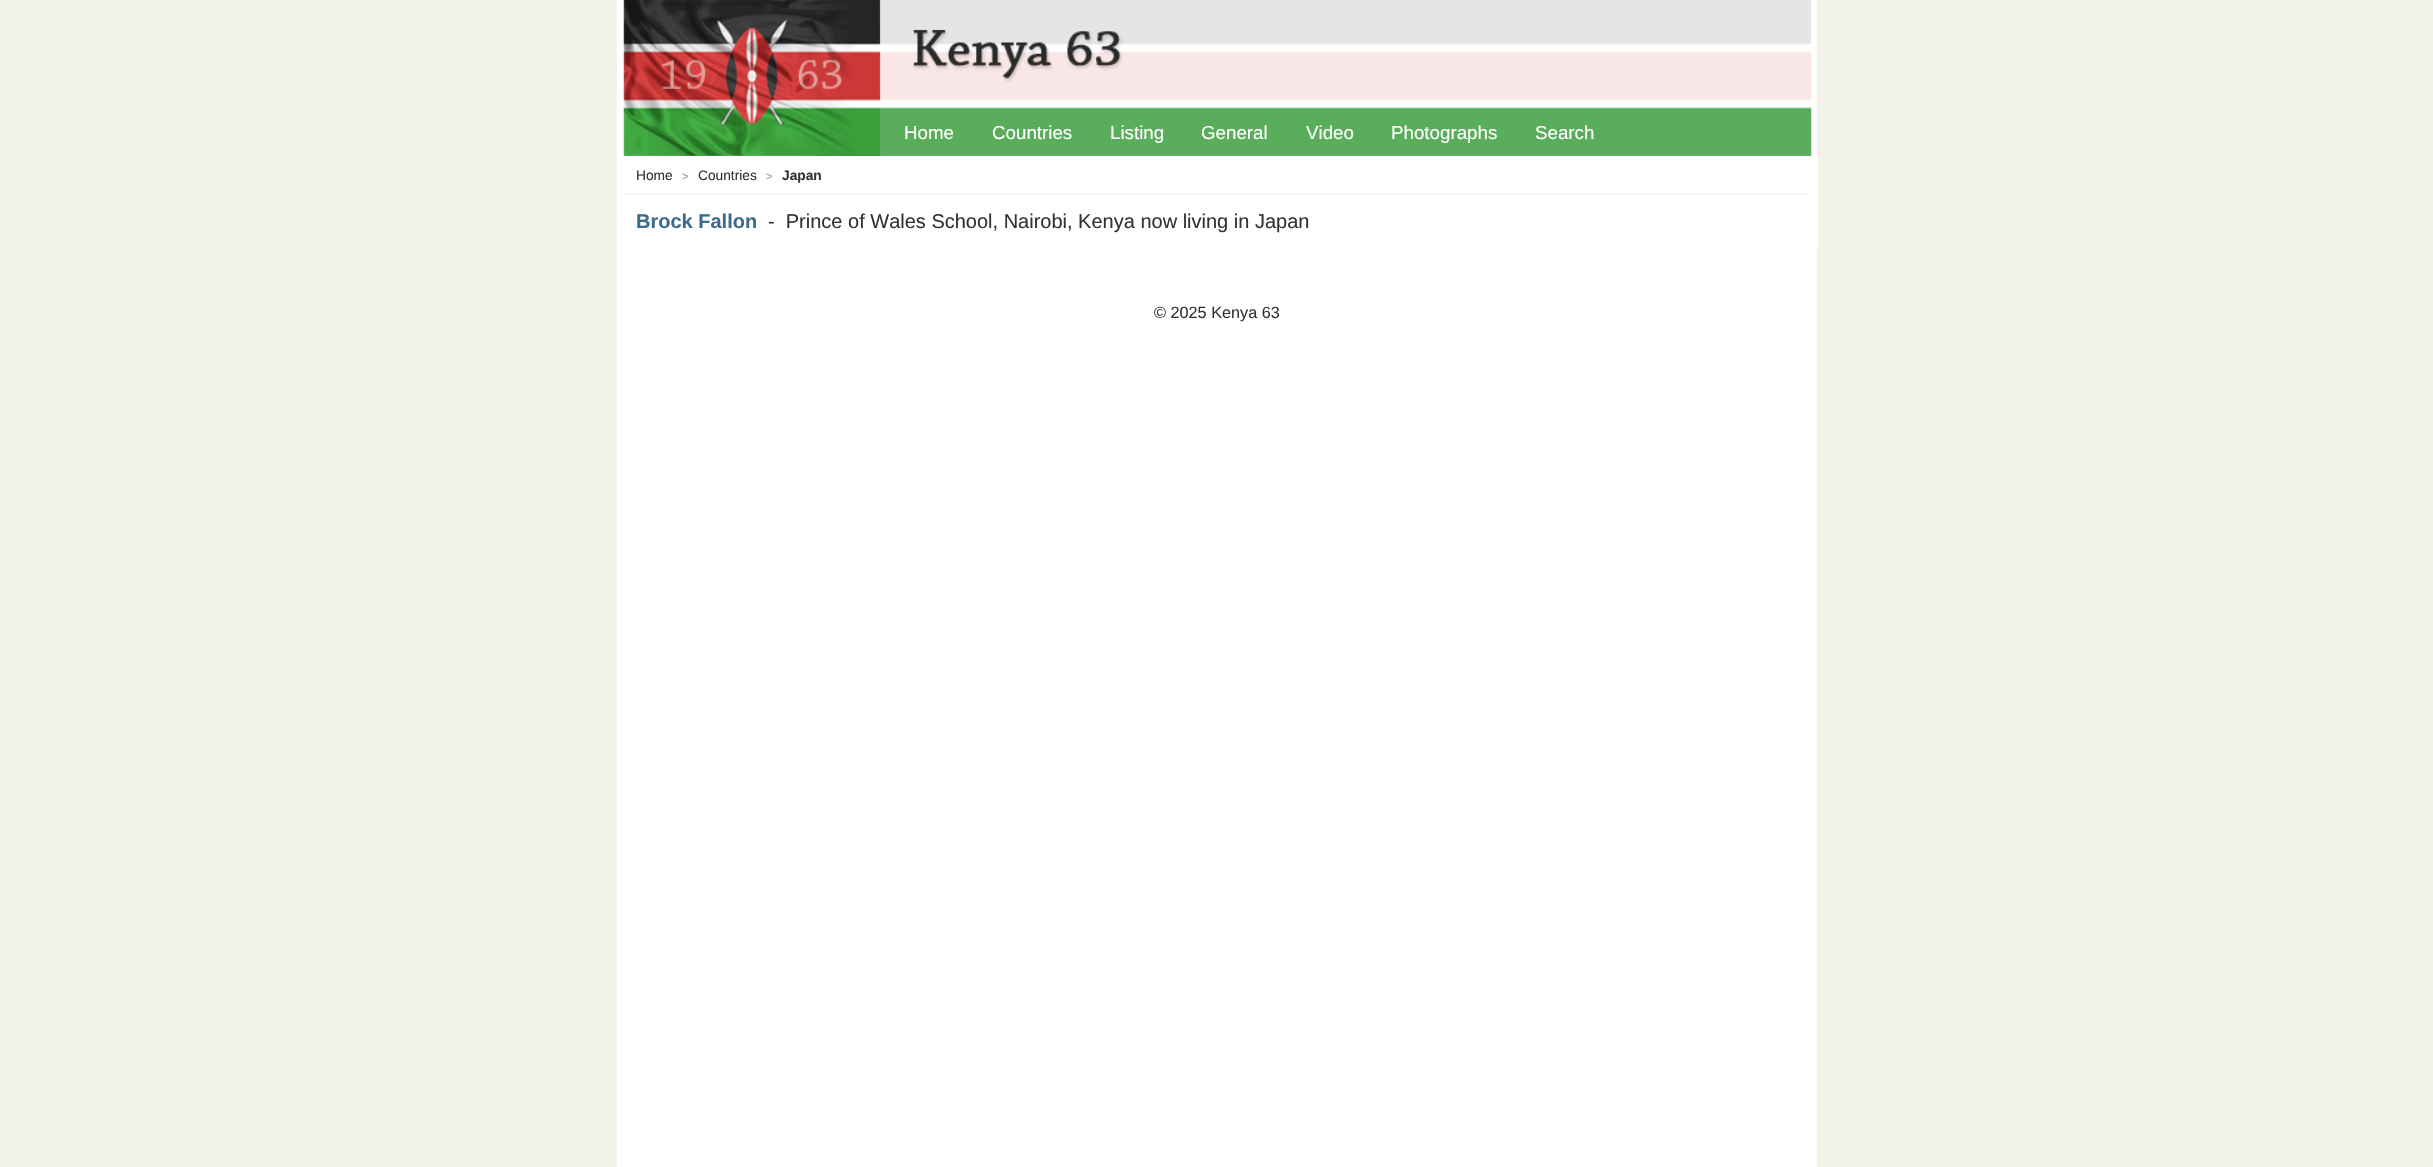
static SkFont makeFont(const char* family, int weight, float size, bool italic = false) {
  SkFontStyle style(weight, SkFontStyle::kNormal_Width,
    italic ? SkFontStyle::kItalic_Slant : SkFontStyle::kUpright_Slant);
  SkFont result(fontMgr->matchFamilyStyle(family, style), size);
  result.setSubpixel(true);
  return result;
}

static void text(SkCanvas* c, const char* s, float x, float y, const SkFont& font, SkColor color) {
  SkPaint ink(SkColor4f::FromColor(color));
  ink.setAntiAlias(true);
  c->drawString(s, x, y, font, ink);
}

static void box(SkCanvas* c, float l, float t, float r, float b, SkColor color) {
  SkPaint ink(SkColor4f::FromColor(color));
  ink.setAntiAlias(true);
  c->drawRect(SkRect::MakeLTRB(l, t, r, b), ink);
}

static void picture(SkCanvas* c, const char* path, float l, float t, float r, float b) {
  auto image = SkImages::DeferredFromEncodedData(SkData::MakeFromFileName(path));
  c->drawImageRect(image, SkRect::MakeLTRB(l, t, r, b), SkSamplingOptions());
}

void draw(SkCanvas* c) {
  SkPaint paint;
  paint.setAntiAlias(true);
  c->clear(0xffffffff);
  picture(c, "img_01.png", 0, 0, 2433, 1167);
  picture(c, "img_02.png", 623, 0, 1812, 156);
  box(c, 1816, 156, 1818, 249, 0xffffffff);
  SkFont face1 = makeFont("Liberation Sans", 400, 18.75f);
  text(c, "Home", 904, 139, face1, 0xffffffff);
  text(c, "Countries", 992, 139, face1, 0xffffffff);
  text(c, "Listing", 1110, 139, face1, 0xffffffff);
  text(c, "General", 1201, 139, face1, 0xffffffff);
  text(c, "Video", 1306, 139, face1, 0xffffffff);
  text(c, "Photographs", 1391, 139, face1, 0xffffffff);
  text(c, "Search", 1535, 139, face1, 0xffffffff);
  box(c, 624, 194, 1811, 195, 0xfff3f3f3);
  SkFont face2 = makeFont("Liberation Sans", 400, 13.75f);
  text(c, "Home", 636, 180, face2, 0xff333333);
  SkFont face3 = makeFont("Liberation Sans", 400, 11);
  text(c, ">", 682, 180, face3, 0xff999999);
  text(c, "Countries", 698, 180, face2, 0xff333333);
  text(c, ">", 766, 180, face3, 0xff999999);
  SkFont face4 = makeFont("Liberation Sans", 700, 13.75f);
  text(c, "Japan", 782, 180, face4, 0xff333333);
  SkFont face5 = makeFont("Liberation Sans", 700, 20);
  text(c, "Brock Fallon", 636, 228, face5, 0xff3c6c8b);
  SkFont face6 = makeFont("Liberation Sans", 400, 20);
  text(c, "-  Prince of Wales School, Nairobi, Kenya now living in Japan", 768, 228, face6, 0xff333333);
  SkFont face7 = makeFont("Liberation Sans", 400, 16.25f);
  text(c, "© 2025 Kenya 63", 1154, 318, face7, 0xff333333);
}
